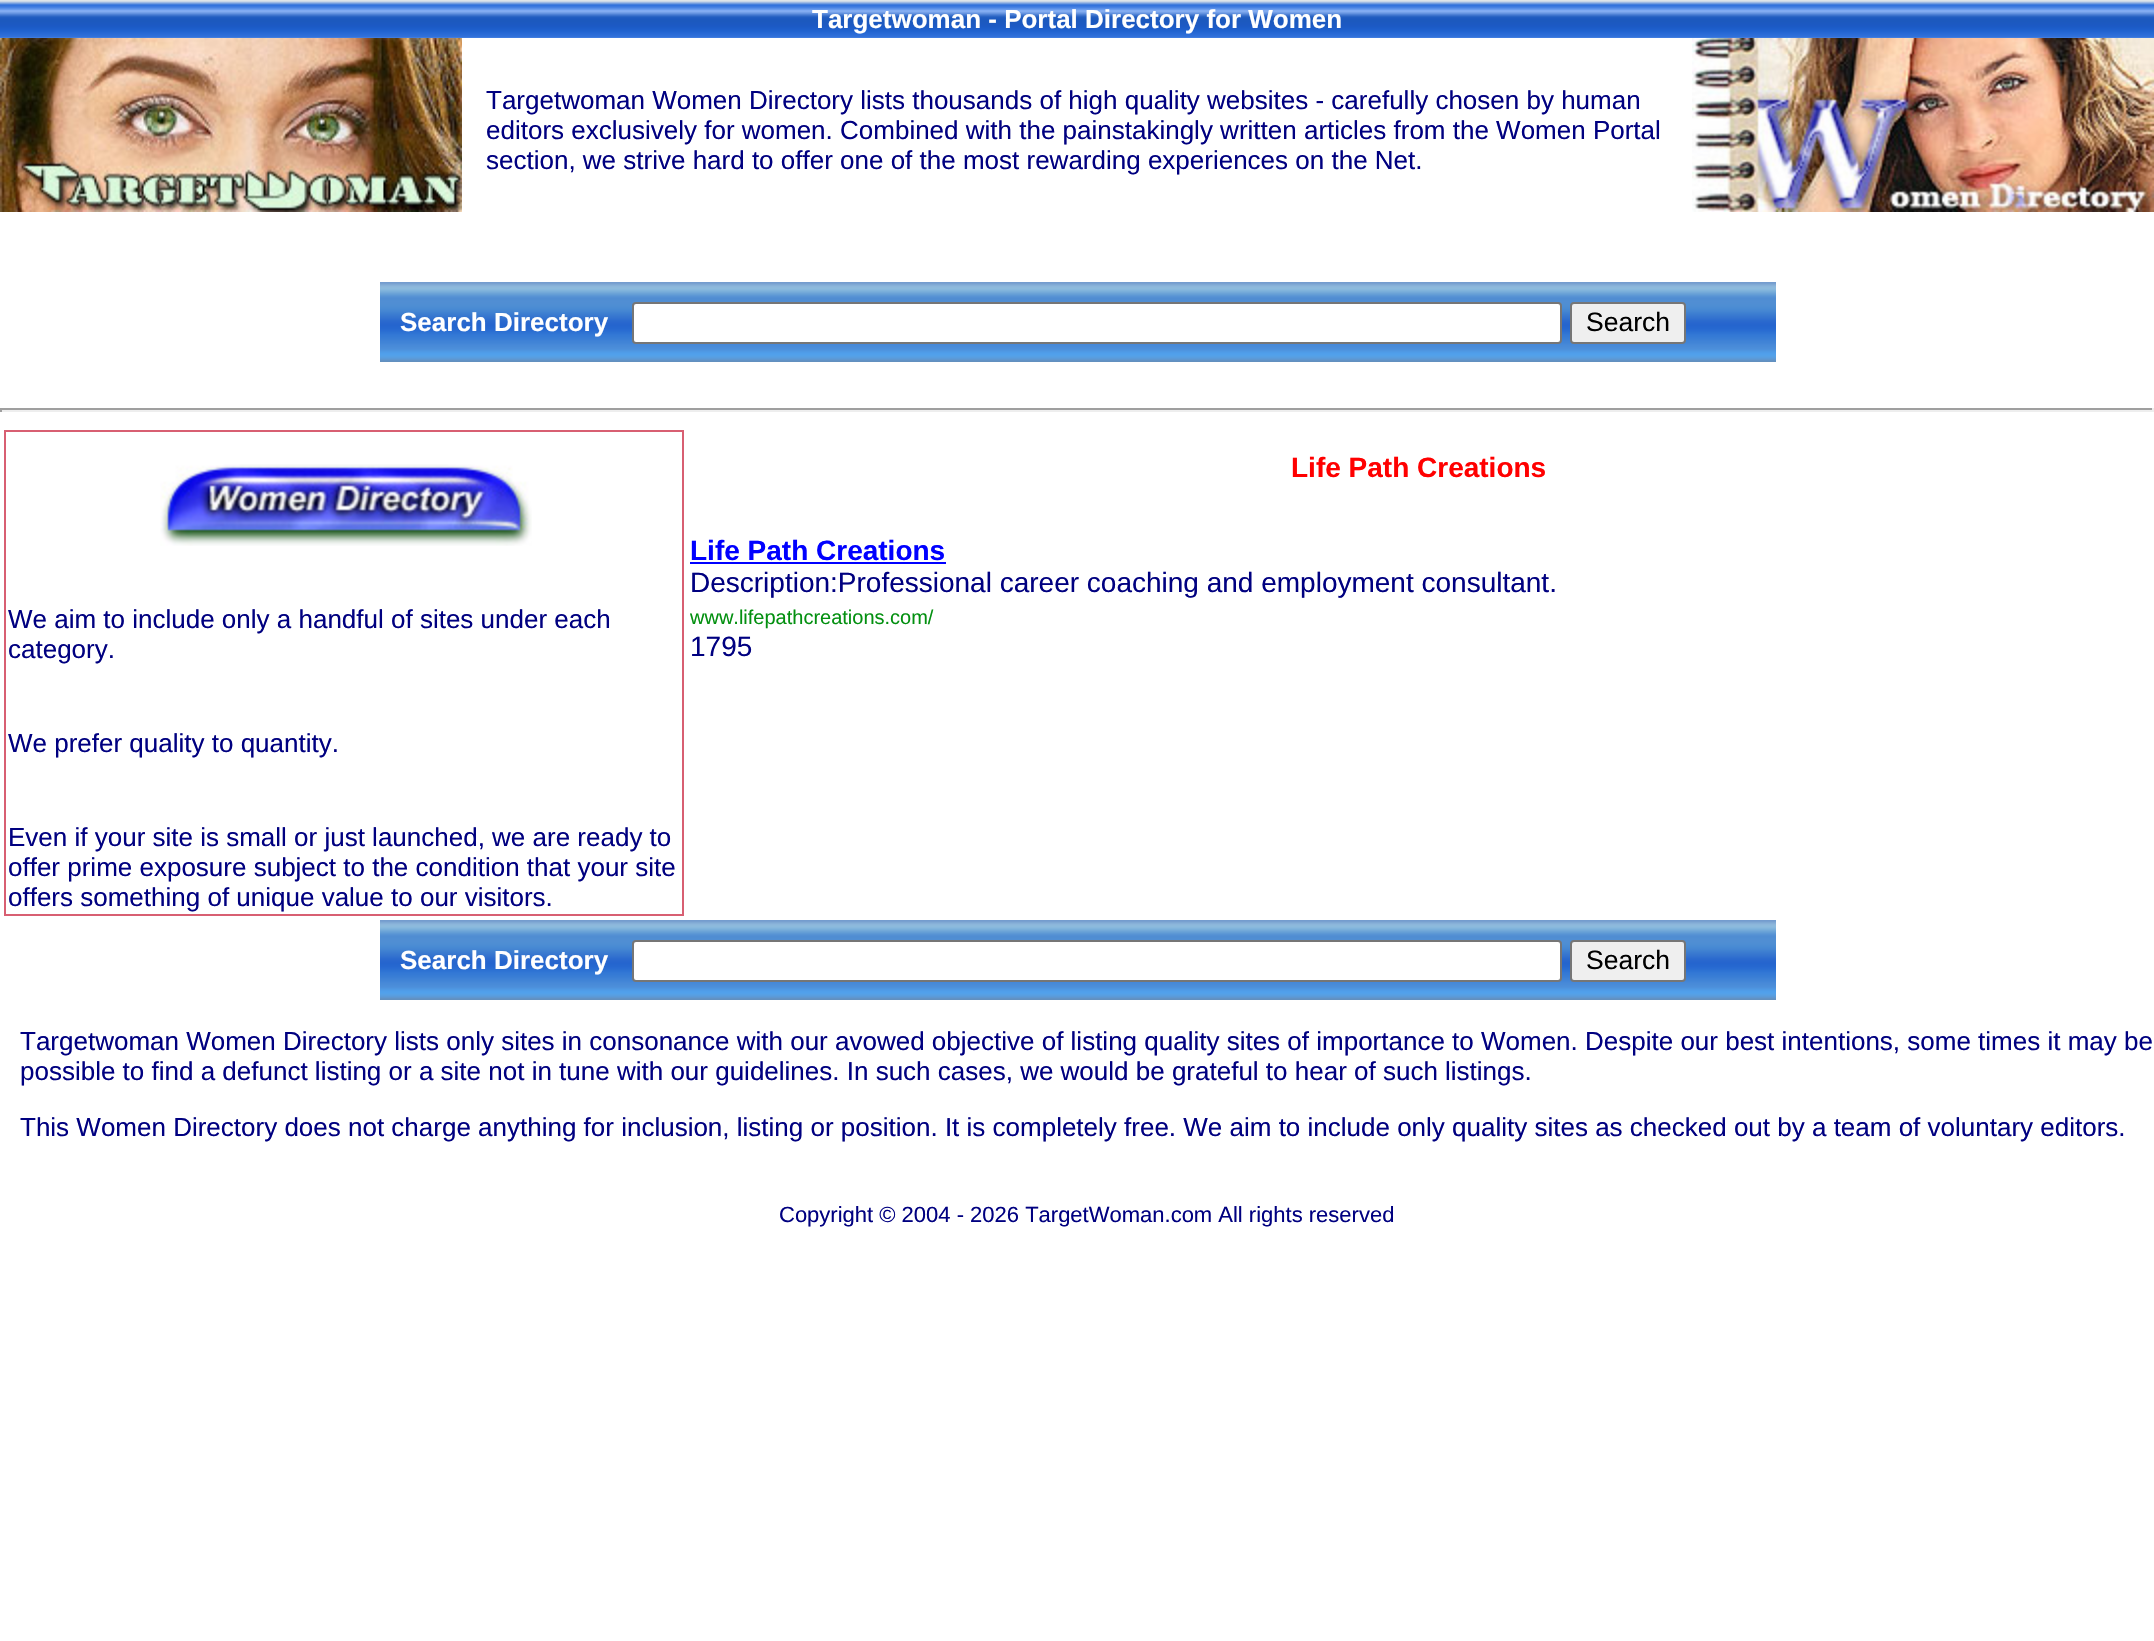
static SkFont makeFont(const char* family, int weight, float size, bool italic = false) {
  SkFontStyle style(weight, SkFontStyle::kNormal_Width,
    italic ? SkFontStyle::kItalic_Slant : SkFontStyle::kUpright_Slant);
  SkFont result(fontMgr->matchFamilyStyle(family, style), size);
  result.setSubpixel(true);
  return result;
}

static void text(SkCanvas* c, const char* s, float x, float y, const SkFont& font, SkColor color) {
  SkPaint ink(SkColor4f::FromColor(color));
  ink.setAntiAlias(true);
  c->drawString(s, x, y, font, ink);
}

static void box(SkCanvas* c, float l, float t, float r, float b, SkColor color) {
  SkPaint ink(SkColor4f::FromColor(color));
  ink.setAntiAlias(true);
  c->drawRect(SkRect::MakeLTRB(l, t, r, b), ink);
}

static void picture(SkCanvas* c, const char* path, float l, float t, float r, float b) {
  auto image = SkImages::DeferredFromEncodedData(SkData::MakeFromFileName(path));
  c->drawImageRect(image, SkRect::MakeLTRB(l, t, r, b), SkSamplingOptions());
}

void draw(SkCanvas* c) {
  SkPaint paint;
  paint.setAntiAlias(true);
  c->clear(0xffffffff);
  picture(c, "img_01.png", 0, 0, 2154, 38);
  SkFont face1 = makeFont("Liberation Sans", 700, 26);
  text(c, "Targetwoman - Portal Directory for Women", 812, 28, face1, 0xffffffff);
  picture(c, "img_02.png", 0, 38, 462, 212);
  SkFont face2 = makeFont("Liberation Sans", 400, 26);
  text(c, "Targetwoman Women Directory lists thousands of high quality websites - carefully chosen by human", 486, 109, face2, 0xff000080);
  text(c, "editors exclusively for women. Combined with the painstakingly written articles from the Women Portal", 486, 139, face2, 0xff000080);
  text(c, "section, we strive hard to offer one of the most rewarding experiences on the Net.", 486, 169, face2, 0xff000080);
  picture(c, "img_03.png", 1692, 38, 2154, 212);
  picture(c, "img_04.png", 380, 282, 1776, 362);
  text(c, "Search Directory", 400, 331, face1, 0xffffffff);
  paint.setColor(0xffffffff);
  c->drawRoundRect(SkRect::MakeLTRB(633, 303, 1561, 343), 3, 3, paint);
  paint.setStyle(SkPaint::kStroke_Style);
  paint.setStrokeWidth(2);
  paint.setColor(0xff767676);
  c->drawRoundRect(SkRect::MakeLTRB(633, 303, 1561, 343), 3, 3, paint);
  paint.setStyle(SkPaint::kFill_Style);
  paint.setColor(0xffefefef);
  c->drawRoundRect(SkRect::MakeLTRB(1571, 303, 1685, 343), 3, 3, paint);
  paint.setStyle(SkPaint::kStroke_Style);
  paint.setColor(0xff767676);
  c->drawRoundRect(SkRect::MakeLTRB(1571, 303, 1685, 343), 3, 3, paint);
  SkFont face3 = makeFont("Liberation Sans", 400, 26.5f);
  text(c, "Search", 1586, 331, face3, 0xff000000);
  box(c, 0, 408, 2154, 410, 0xff9f9f9f);
  box(c, 2152, 408, 2154, 412, 0xffeeeeee);
  box(c, 0, 410, 2154, 412, 0xffeeeeee);
  box(c, 0, 408, 2, 412, 0xff9f9f9f);
  SkFont face4 = makeFont("Liberation Sans", 700, 28);
  text(c, "Life Path Creations", 1291, 477, face4, 0xffff0000);
  text(c, "Life Path Creations", 690, 560, face4, 0xff0000ff);
  box(c, 690, 562, 946, 564, 0xff0000ff);
  SkFont face5 = makeFont("Liberation Sans", 400, 28);
  text(c, "Description:Professional career coaching and employment consultant.", 690, 592, face5, 0xff000080);
  SkFont face6 = makeFont("Liberation Sans", 400, 20);
  text(c, "www.lifepathcreations.com/", 690, 624, face6, 0xff039010);
  text(c, "1795", 690, 656, face5, 0xff000080);
  paint.setColor(0xffd85f72);
  c->drawRect(SkRect::MakeLTRB(5, 431, 683, 915), paint);
  picture(c, "img_05.png", 160, 464, 532, 546);
  text(c, "We aim to include only a handful of sites under each", 8, 628, face2, 0xff000080);
  text(c, "category.", 8, 658, face2, 0xff000080);
  text(c, "We prefer quality to quantity.", 8, 752, face2, 0xff000080);
  text(c, "Even if your site is small or just launched, we are ready to", 8, 846, face2, 0xff000080);
  text(c, "offer prime exposure subject to the condition that your site", 8, 876, face2, 0xff000080);
  text(c, "offers something of unique value to our visitors.", 8, 906, face2, 0xff000080);
  picture(c, "img_04.png", 380, 920, 1776, 1000);
  text(c, "Search Directory", 400, 969, face1, 0xffffffff);
  paint.setStyle(SkPaint::kFill_Style);
  paint.setColor(0xffffffff);
  c->drawRoundRect(SkRect::MakeLTRB(633, 941, 1561, 981), 3, 3, paint);
  paint.setStyle(SkPaint::kStroke_Style);
  paint.setColor(0xff767676);
  c->drawRoundRect(SkRect::MakeLTRB(633, 941, 1561, 981), 3, 3, paint);
  paint.setStyle(SkPaint::kFill_Style);
  paint.setColor(0xffefefef);
  c->drawRoundRect(SkRect::MakeLTRB(1571, 941, 1685, 981), 3, 3, paint);
  paint.setStyle(SkPaint::kStroke_Style);
  paint.setColor(0xff767676);
  c->drawRoundRect(SkRect::MakeLTRB(1571, 941, 1685, 981), 3, 3, paint);
  text(c, "Search", 1586, 969, face3, 0xff000000);
  text(c, "Targetwoman Women Directory lists only sites in consonance with our avowed objective of listing quality sites of importance to Women. Despite our best intentions, some times it may be", 20, 1050, face2, 0xff000080);
  text(c, "possible to find a defunct listing or a site not in tune with our guidelines. In such cases, we would be grateful to hear of such listings.", 20, 1080, face2, 0xff000080);
  text(c, "This Women Directory does not charge anything for inclusion, listing or position. It is completely free. We aim to include only quality sites as checked out by a team of voluntary editors.", 20, 1136, face2, 0xff000080);
  SkFont face7 = makeFont("Liberation Sans", 400, 22);
  text(c, "Copyright © 2004 - 2026 TargetWoman.com All rights reserved", 779, 1222, face7, 0xff000080);
}
